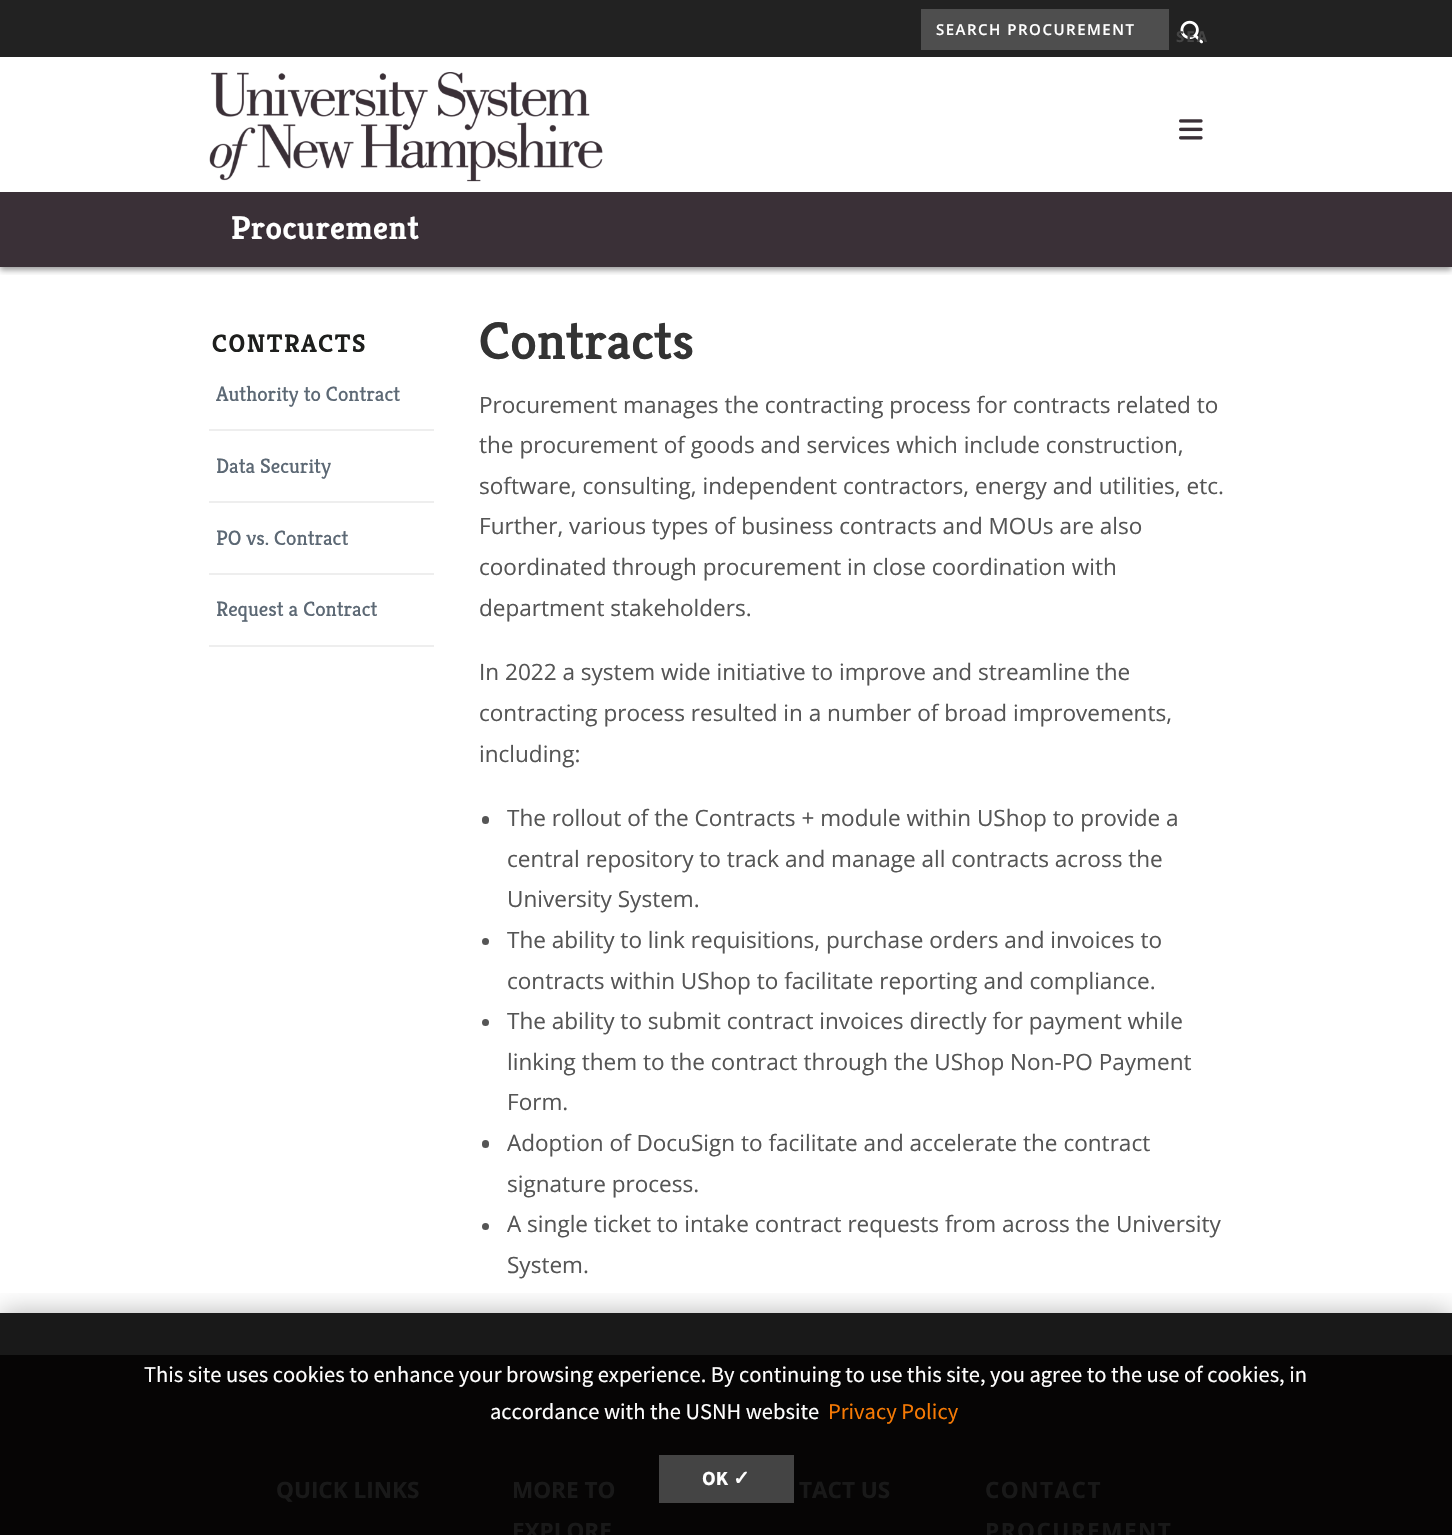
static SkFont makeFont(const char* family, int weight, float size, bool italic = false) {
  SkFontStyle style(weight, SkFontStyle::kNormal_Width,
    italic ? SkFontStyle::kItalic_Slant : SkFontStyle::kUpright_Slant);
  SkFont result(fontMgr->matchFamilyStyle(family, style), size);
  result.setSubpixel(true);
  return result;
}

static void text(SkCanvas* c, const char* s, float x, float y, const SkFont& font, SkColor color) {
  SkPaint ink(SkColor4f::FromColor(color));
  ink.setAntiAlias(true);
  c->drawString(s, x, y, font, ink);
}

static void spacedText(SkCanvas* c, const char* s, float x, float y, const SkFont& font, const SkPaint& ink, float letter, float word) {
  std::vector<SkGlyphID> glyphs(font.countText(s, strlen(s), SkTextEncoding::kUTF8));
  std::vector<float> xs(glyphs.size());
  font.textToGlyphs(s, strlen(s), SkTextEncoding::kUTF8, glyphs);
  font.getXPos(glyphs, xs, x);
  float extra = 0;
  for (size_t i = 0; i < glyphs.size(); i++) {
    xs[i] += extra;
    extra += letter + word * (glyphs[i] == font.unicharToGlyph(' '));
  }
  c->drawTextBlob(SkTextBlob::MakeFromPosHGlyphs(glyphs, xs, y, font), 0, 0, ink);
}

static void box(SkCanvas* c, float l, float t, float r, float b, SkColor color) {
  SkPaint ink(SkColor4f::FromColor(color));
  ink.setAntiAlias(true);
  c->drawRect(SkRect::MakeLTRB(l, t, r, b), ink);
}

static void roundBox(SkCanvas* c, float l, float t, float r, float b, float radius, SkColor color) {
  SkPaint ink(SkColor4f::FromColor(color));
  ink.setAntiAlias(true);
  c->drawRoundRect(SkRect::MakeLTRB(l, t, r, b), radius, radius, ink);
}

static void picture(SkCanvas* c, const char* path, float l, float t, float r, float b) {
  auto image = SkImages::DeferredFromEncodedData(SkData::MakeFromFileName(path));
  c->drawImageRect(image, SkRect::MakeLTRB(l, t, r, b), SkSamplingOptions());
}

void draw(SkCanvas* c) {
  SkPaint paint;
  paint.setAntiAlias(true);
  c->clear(0xffffffff);
  box(c, 0, 1313, 1452, 1355, 0xff191919);
  c->save();
  c->clipRect(SkRect::MakeLTRB(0, 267, 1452, 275));
  paint.setColor(0x66000000);
  paint.setMaskFilter(SkMaskFilter::MakeBlur(kNormal_SkBlurStyle, 3));
  c->drawRect(SkRect::MakeLTRB(0, 3, 1452, 270), paint);
  paint.setMaskFilter(nullptr);
  c->restore();
  box(c, 0, 0, 1452, 57, 0xff222222);
  box(c, 921, 9, 1169, 50, 0xff4e4e4e);
  SkFont face1 = makeFont("Open Sans", 600, 15);
  paint.setColor(0xffffffff);
  spacedText(c, "SEARCH PROCUREMENT", 936, 35, face1, paint, 1.5f, 0);
  picture(c, "img_01.png", 1180, 20, 1203, 44);
  SkFont face2 = makeFont("Open Sans", 700, 15);
  paint.setColor(0xff444444);
  spacedText(c, "SEA", 1176, 42, face2, paint, 2, 0);
  picture(c, "img_02.png", 209, 72, 603, 182);
  picture(c, "img_03.png", 1179, 119, 1203, 140);
  box(c, 0, 192, 1452, 267, 0xff3a3037);
  SkFont face3 = makeFont("Kreon", 700, 33);
  paint.setColor(0xffffffff);
  spacedText(c, "Procurement", 231, 239, face3, paint, 0.5f, 0);
  SkFont face4 = makeFont("Kreon", 700, 25.5f);
  paint.setColor(0xff1e1f1d);
  spacedText(c, "CONTRACTS", 212, 352, face4, paint, 1.5f, 0);
  box(c, 209, 429, 434, 431, 0xffeeeeee);
  SkFont face5 = makeFont("Kreon", 400, 21);
  text(c, "Authority to Contract", 216, 401, face5, 0xff5c6874);
  box(c, 209, 501, 434, 503, 0xffeeeeee);
  text(c, "Data Security", 216, 473, face5, 0xff5c6874);
  box(c, 209, 573, 434, 575, 0xffeeeeee);
  text(c, "PO vs. Contract", 216, 545, face5, 0xff5c6874);
  box(c, 209, 645, 434, 647, 0xffeeeeee);
  text(c, "Request a Contract", 216, 616, face5, 0xff5c6874);
  SkFont face6 = makeFont("Kreon", 600, 53.5f);
  text(c, "Contracts", 479, 359, face6, 0xff333333);
  SkFont face7 = makeFont("Open Sans", 400, 22.55f);
  text(c, "Procurement manages the contracting process for contracts related to", 479, 413, face7, 0xff555555);
  text(c, "the procurement of goods and services which include construction,", 479, 453, face7, 0xff555555);
  text(c, "software, consulting, independent contractors, energy and utilities, etc.", 479, 494, face7, 0xff555555);
  text(c, "Further, various types of business contracts and MOUs are also", 479, 534, face7, 0xff555555);
  text(c, "coordinated through procurement in close coordination with", 479, 575, face7, 0xff555555);
  text(c, "department stakeholders.", 479, 616, face7, 0xff555555);
  text(c, "In 2022 a system wide initiative to improve and streamline the", 479, 680, face7, 0xff555555);
  text(c, "contracting process resulted in a number of broad improvements,", 479, 721, face7, 0xff555555);
  text(c, "including:", 479, 762, face7, 0xff555555);
  roundBox(c, 482, 816, 489, 824, 3.5f, 0xff555555);
  text(c, "The rollout of the Contracts + module within UShop to provide a", 507, 826, face7, 0xff555555);
  text(c, "central repository to track and manage all contracts across the", 507, 867, face7, 0xff555555);
  text(c, "University System.", 507, 907, face7, 0xff555555);
  paint.setColor(0xff555555);
  c->drawCircle(485.5f, 941.5f, 3.5f, paint);
  text(c, "The ability to link requisitions, purchase orders and invoices to", 507, 948, face7, 0xff555555);
  text(c, "contracts within UShop to facilitate reporting and compliance.", 507, 989, face7, 0xff555555);
  c->drawCircle(485.5f, 1022.5f, 3.5f, paint);
  text(c, "The ability to submit contract invoices directly for payment while", 507, 1029, face7, 0xff555555);
  text(c, "linking them to the contract through the UShop Non-PO Payment", 507, 1070, face7, 0xff555555);
  text(c, "Form.", 507, 1110, face7, 0xff555555);
  roundBox(c, 482, 1140, 489, 1148, 3.5f, 0xff555555);
  text(c, "Adoption of DocuSign to facilitate and accelerate the contract", 507, 1151, face7, 0xff555555);
  text(c, "signature process.", 507, 1192, face7, 0xff555555);
  c->drawCircle(485.5f, 1226.5f, 3.5f, paint);
  text(c, "A single ticket to intake contract requests from across the University", 507, 1232, face7, 0xff555555);
  text(c, "System.", 507, 1273, face7, 0xff555555);
  box(c, 0, 1355, 1452, 1535, 0xff060505);
  SkFont face8 = makeFont("Open Sans", 700, 22.5f);
  text(c, "QUICK LINKS", 276, 1498, face8, 0xff191919);
  text(c, "MORE TO", 512, 1498, face8, 0xff191919);
  text(c, "EXPLORE", 512, 1539, face8, 0xff191919);
  text(c, "TACT US", 799, 1498, face8, 0xff191919);
  paint.setColor(0xff191919);
  spacedText(c, "CONTACT", 985, 1498, face8, paint, 1.5f, 0);
  spacedText(c, "PROCUREMENT", 985, 1539, face8, paint, 1.5f, 0);
  c->save();
  c->clipRect(SkRect::MakeLTRB(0, 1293, 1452, 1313));
  paint.setColor(0x4d000000);
  paint.setMaskFilter(SkMaskFilter::MakeBlur(kNormal_SkBlurStyle, 13));
  c->drawRect(SkRect::MakeLTRB(0, 1313, 1452, 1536), paint);
  paint.setMaskFilter(nullptr);
  c->restore();
  SkFont face9 = makeFont("Source Sans Pro", 400, 22.5f);
  text(c, "This site uses cookies to enhance your browsing experience. By continuing to use this site, you agree to the use of cookies, in", 144, 1382, face9, 0xffffffff);
  text(c, "accordance with the USNH website", 490, 1419, face9, 0xffffffff);
  text(c, "Privacy Policy", 828, 1419, face9, 0xfff77a05);
  box(c, 659, 1455, 794, 1503, 0xff444444);
  SkFont face10 = makeFont("Source Sans Pro", 700, 20);
  text(c, "OK", 702, 1485, face10, 0xffffffff);
  SkFont face11 = makeFont("DejaVu Sans", 700, 20);
  text(c, "✓", 733, 1485, face11, 0xffffffff);
}
